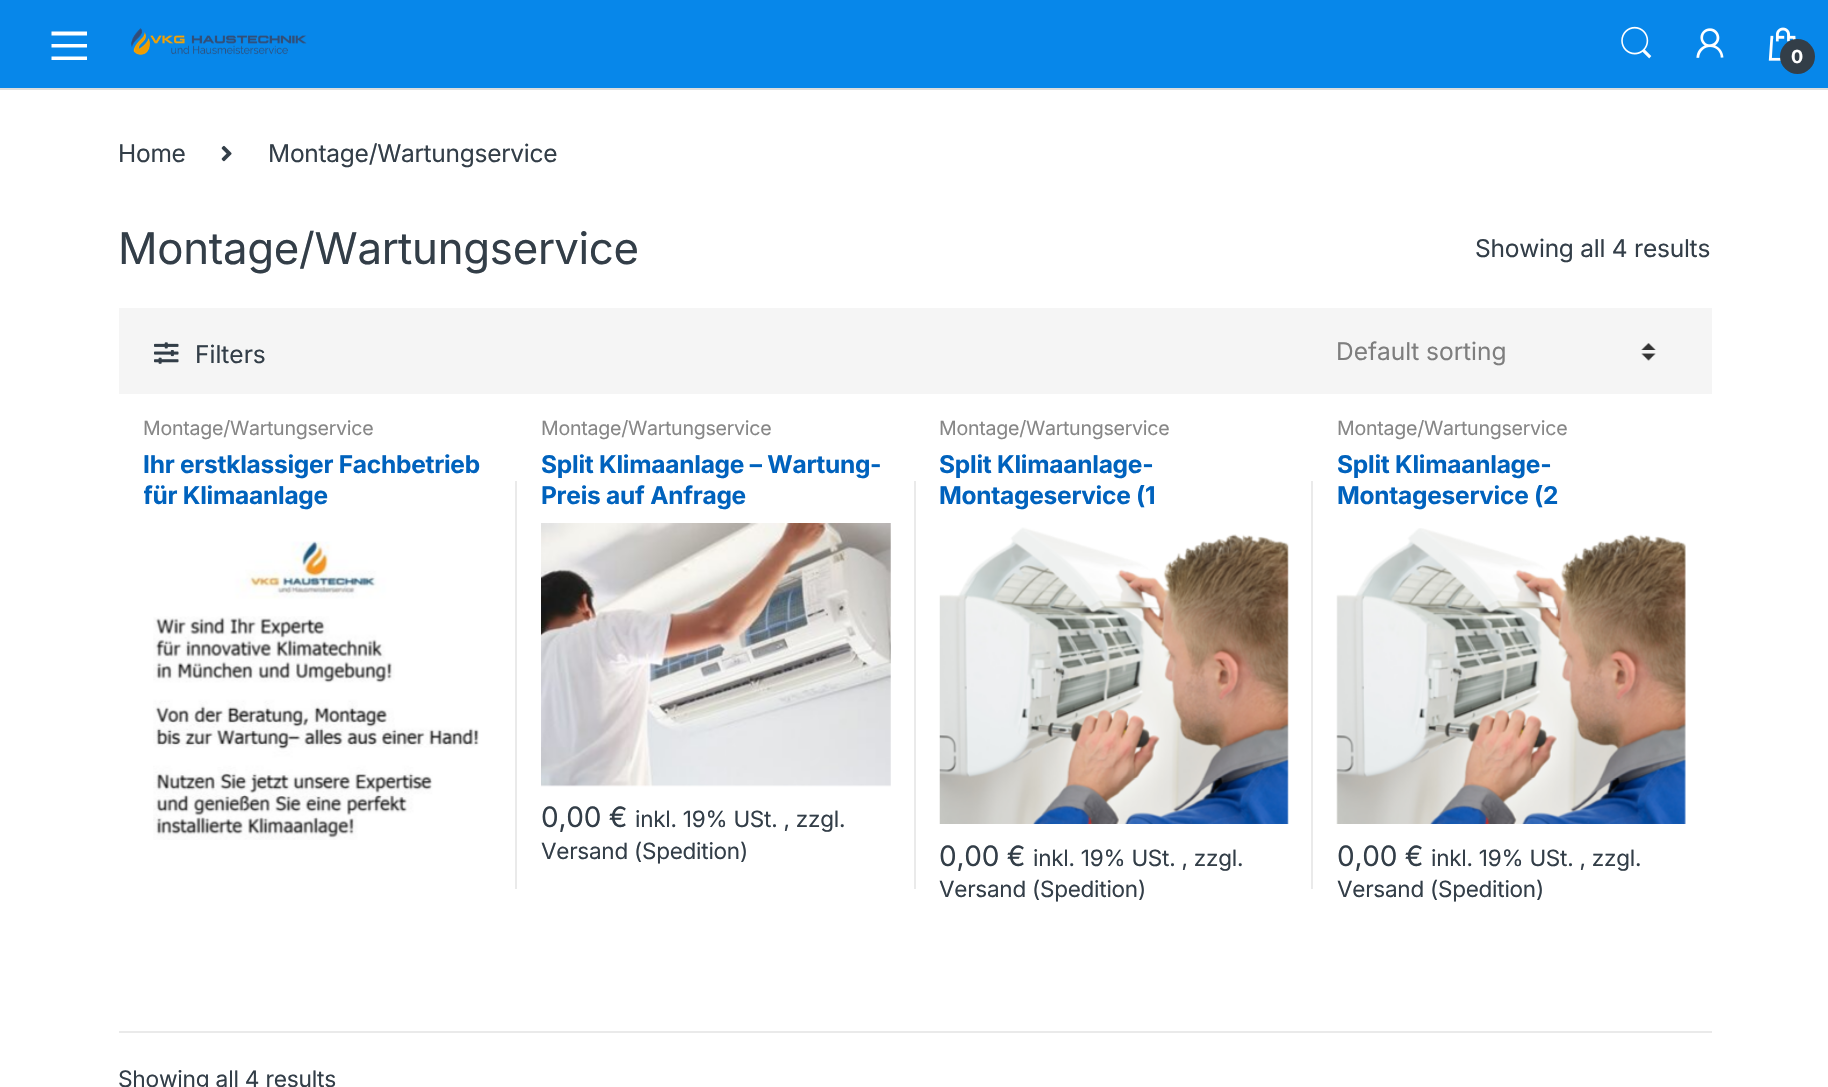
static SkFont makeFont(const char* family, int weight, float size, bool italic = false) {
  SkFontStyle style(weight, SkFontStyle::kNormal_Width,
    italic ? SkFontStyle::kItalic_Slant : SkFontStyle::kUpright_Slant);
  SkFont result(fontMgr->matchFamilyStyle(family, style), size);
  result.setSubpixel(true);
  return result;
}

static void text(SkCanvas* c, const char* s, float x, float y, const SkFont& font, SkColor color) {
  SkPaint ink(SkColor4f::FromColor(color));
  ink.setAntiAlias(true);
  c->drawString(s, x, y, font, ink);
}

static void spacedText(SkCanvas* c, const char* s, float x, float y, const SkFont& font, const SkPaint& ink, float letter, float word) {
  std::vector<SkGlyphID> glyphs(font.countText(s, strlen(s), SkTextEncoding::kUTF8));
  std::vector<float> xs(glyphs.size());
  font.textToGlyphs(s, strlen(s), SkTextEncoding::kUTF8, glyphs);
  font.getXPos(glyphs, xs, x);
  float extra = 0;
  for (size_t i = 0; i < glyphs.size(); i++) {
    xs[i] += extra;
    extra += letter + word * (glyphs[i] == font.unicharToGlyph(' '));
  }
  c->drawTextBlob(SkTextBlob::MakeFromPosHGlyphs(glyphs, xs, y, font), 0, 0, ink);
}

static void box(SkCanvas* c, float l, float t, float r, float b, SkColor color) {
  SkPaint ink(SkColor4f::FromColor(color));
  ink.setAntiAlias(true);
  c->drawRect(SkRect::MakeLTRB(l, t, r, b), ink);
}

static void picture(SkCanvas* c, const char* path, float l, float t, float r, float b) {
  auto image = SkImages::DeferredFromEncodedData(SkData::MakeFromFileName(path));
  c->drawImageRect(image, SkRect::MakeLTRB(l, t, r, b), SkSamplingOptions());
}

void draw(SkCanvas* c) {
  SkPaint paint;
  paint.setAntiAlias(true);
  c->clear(0xffffffff);
  box(c, 0, 88, 1828, 90, 0xffdddddd);
  box(c, 0, 0, 1828, 88, 0xff0787ea);
  paint.setColor(0xffffffff);
  c->drawPath(SkPathBuilder().moveTo(51.5f, 60).lineTo(51.5f, 56.5f).lineTo(87, 56.5f).lineTo(87, 60).close().moveTo(51.5f, 44).lineTo(87, 44).lineTo(87, 47.5f).lineTo(51.5f, 47.5f).close().moveTo(51.5f, 31.5f).lineTo(87, 31.5f).lineTo(87, 35.5f).lineTo(51.5f, 35.5f).close().detach(), paint);
  picture(c, "img_01.png", 131, 28, 307, 55);
  picture(c, "img_02.png", 1621, 26, 1652, 59);
  picture(c, "img_03.png", 1696, 28, 1724, 58);
  picture(c, "img_04.png", 1768, 27, 1796, 61);
  paint.setColor(0xff333e48);
  c->drawCircle(1797.5f, 56.5f, 17.5f, paint);
  SkFont face1 = makeFont("Inter", 700, 18);
  paint.setColor(0xffffffff);
  spacedText(c, "0", 1791, 63, face1, paint, -0.25f, 0);
  SkFont face2 = makeFont("Inter", 400, 24.5f);
  paint.setColor(0xff333e48);
  spacedText(c, "Home", 118, 162, face2, paint, -0.25f, 0);
  picture(c, "img_05.png", 221, 145, 232, 162);
  spacedText(c, "Montage/Wartungservice", 268, 162, face2, paint, -0.25f, 0);
  SkFont face3 = makeFont("Inter", 400, 43.75f);
  spacedText(c, "Montage/Wartungservice", 118, 264, face3, paint, -0.25f, 0);
  spacedText(c, "Showing all 4 results", 1475, 257, face2, paint, -0.25f, 0);
  box(c, 119, 308, 1712, 394, 0xfff5f5f5);
  picture(c, "img_06.png", 154, 342, 179, 364);
  text(c, "Filters", 195, 363, face2, 0xff333e48);
  picture(c, "img_07.png", 1641, 343, 1656, 361);
  text(c, "Default sorting", 1336, 360, face2, 0xff7e7e7e);
  SkFont face4 = makeFont("Inter", 400, 19.6f);
  paint.setColor(0xff878787);
  spacedText(c, "Montage/Wartungservice", 143, 435, face4, paint, -0.25f, 0);
  SkFont face5 = makeFont("Inter", 700, 24.5f);
  paint.setColor(0xff0062bd);
  spacedText(c, "Ihr erstklassiger Fachbetrieb", 143, 473, face5, paint, -0.25f, 0);
  c->save();
  c->clipRect(SkRect::MakeLTRB(144, 448, 492, 511));
  spacedText(c, "für Klimaanlage", 143, 504, face5, paint, -0.25f, 0);
  c->restore();
  picture(c, "img_08.png", 153, 541, 479, 840);
  box(c, 515, 481, 517, 889, 0xffeaeaea);
  paint.setColor(0xff878787);
  spacedText(c, "Montage/Wartungservice", 541, 435, face4, paint, -0.25f, 0);
  paint.setColor(0xff0062bd);
  spacedText(c, "Split Klimaanlage – Wartung-", 541, 473, face5, paint, -0.25f, 0);
  spacedText(c, "Preis auf Anfrage", 541, 504, face5, paint, -0.25f, 0);
  picture(c, "img_09.png", 541, 523, 891, 787);
  SkFont face6 = makeFont("Inter", 400, 28);
  paint.setColor(0xff333e48);
  spacedText(c, "0,00 €", 541, 827, face6, paint, -0.25f, 0);
  SkFont face7 = makeFont("Inter", 400, 22.5f);
  spacedText(c, "inkl. 19% USt. , zzgl.", 635, 827, face7, paint, -0.25f, 0);
  spacedText(c, "Versand (Spedition)", 541, 859, face7, paint, -0.25f, 0);
  box(c, 914, 481, 916, 889, 0xffeaeaea);
  paint.setColor(0xff878787);
  spacedText(c, "Montage/Wartungservice", 939, 435, face4, paint, -0.25f, 0);
  paint.setColor(0xff0062bd);
  spacedText(c, "Split Klimaanlage-", 939, 473, face5, paint, -0.25f, 0);
  spacedText(c, "Montageservice (1", 939, 504, face5, paint, -0.25f, 0);
  picture(c, "img_10.png", 939, 527, 1289, 824);
  paint.setColor(0xff333e48);
  spacedText(c, "0,00 €", 939, 866, face6, paint, -0.25f, 0);
  spacedText(c, "inkl. 19% USt. , zzgl.", 1033, 866, face7, paint, -0.25f, 0);
  spacedText(c, "Versand (Spedition)", 939, 897, face7, paint, -0.25f, 0);
  box(c, 1311, 481, 1313, 889, 0xffeaeaea);
  paint.setColor(0xff878787);
  spacedText(c, "Montage/Wartungservice", 1337, 435, face4, paint, -0.25f, 0);
  paint.setColor(0xff0062bd);
  spacedText(c, "Split Klimaanlage-", 1337, 473, face5, paint, -0.25f, 0);
  spacedText(c, "Montageservice (2", 1337, 504, face5, paint, -0.25f, 0);
  picture(c, "img_11.png", 1336, 528, 1686, 824);
  paint.setColor(0xff333e48);
  spacedText(c, "0,00 €", 1337, 866, face6, paint, -0.25f, 0);
  spacedText(c, "inkl. 19% USt. , zzgl.", 1431, 866, face7, paint, -0.25f, 0);
  spacedText(c, "Versand (Spedition)", 1337, 897, face7, paint, -0.25f, 0);
  box(c, 119, 1031, 1712, 1033, 0xffeaeaea);
  SkFont face8 = makeFont("Inter", 400, 22.75f);
  spacedText(c, "Showing all 4 results", 118, 1087, face8, paint, -0.25f, 0);
}
